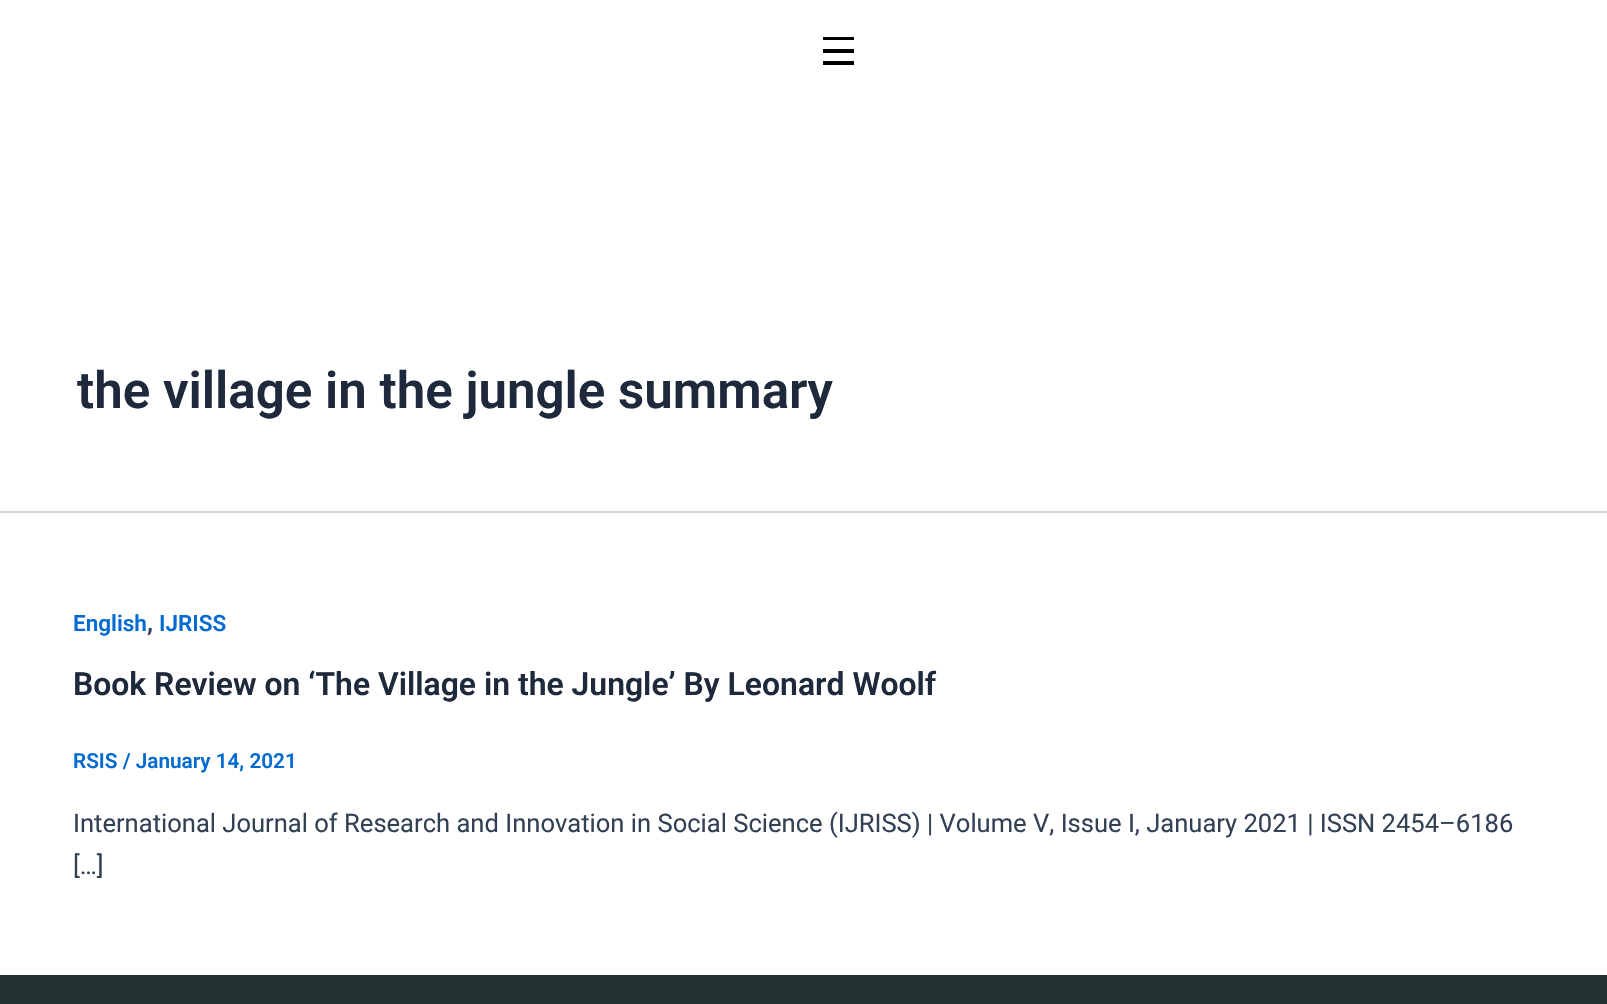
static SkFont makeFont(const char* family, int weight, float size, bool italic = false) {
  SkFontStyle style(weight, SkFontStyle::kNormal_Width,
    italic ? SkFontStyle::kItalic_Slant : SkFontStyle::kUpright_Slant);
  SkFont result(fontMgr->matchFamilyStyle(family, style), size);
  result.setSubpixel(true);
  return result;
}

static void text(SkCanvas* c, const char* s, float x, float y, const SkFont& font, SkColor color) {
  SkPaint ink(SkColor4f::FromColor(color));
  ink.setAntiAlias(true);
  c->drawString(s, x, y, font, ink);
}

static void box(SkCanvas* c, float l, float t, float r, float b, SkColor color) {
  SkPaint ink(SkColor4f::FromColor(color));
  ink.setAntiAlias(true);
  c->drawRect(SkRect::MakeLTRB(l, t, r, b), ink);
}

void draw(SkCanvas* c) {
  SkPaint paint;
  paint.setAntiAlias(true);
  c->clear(0xffffffff);
  box(c, 823, 37, 854, 40, 0xff000000);
  box(c, 823, 49, 854, 53, 0xff000000);
  box(c, 823, 61, 854, 65, 0xff000000);
  box(c, 0, 511, 1607, 513, 0xffd1d5db);
  SkFont face1 = makeFont("Roboto", 600, 51.1f);
  text(c, "the village in the jungle summary", 77, 408, face1, 0xff1e293b);
  SkFont face2 = makeFont("Roboto", 600, 22.5f);
  text(c, "English", 73, 631, face2, 0xff046bd2);
  SkFont face3 = makeFont("Roboto", 600, 25.55f);
  text(c, ",", 147, 631, face3, 0xff334155);
  text(c, "IJRISS", 159, 631, face2, 0xff046bd2);
  SkFont face4 = makeFont("Roboto", 600, 31.9f);
  text(c, "Book Review on ‘The Village in the Jungle’ By Leonard Woolf", 73, 695, face4, 0xff1e293b);
  SkFont face5 = makeFont("Roboto", 600, 20.75f);
  text(c, "RSIS / January 14, 2021", 73, 768, face5, 0xff046bd2);
  SkFont face6 = makeFont("Roboto", 400, 25.55f);
  text(c, "International Journal of Research and Innovation in Social Science (IJRISS) | Volume V, Issue I, January 2021 | ISSN 2454–6186", 73, 832, face6, 0xff334155);
  text(c, "[…]", 73, 874, face6, 0xff334155);
  box(c, 0, 975, 1607, 1004, 0xff223132);
}
